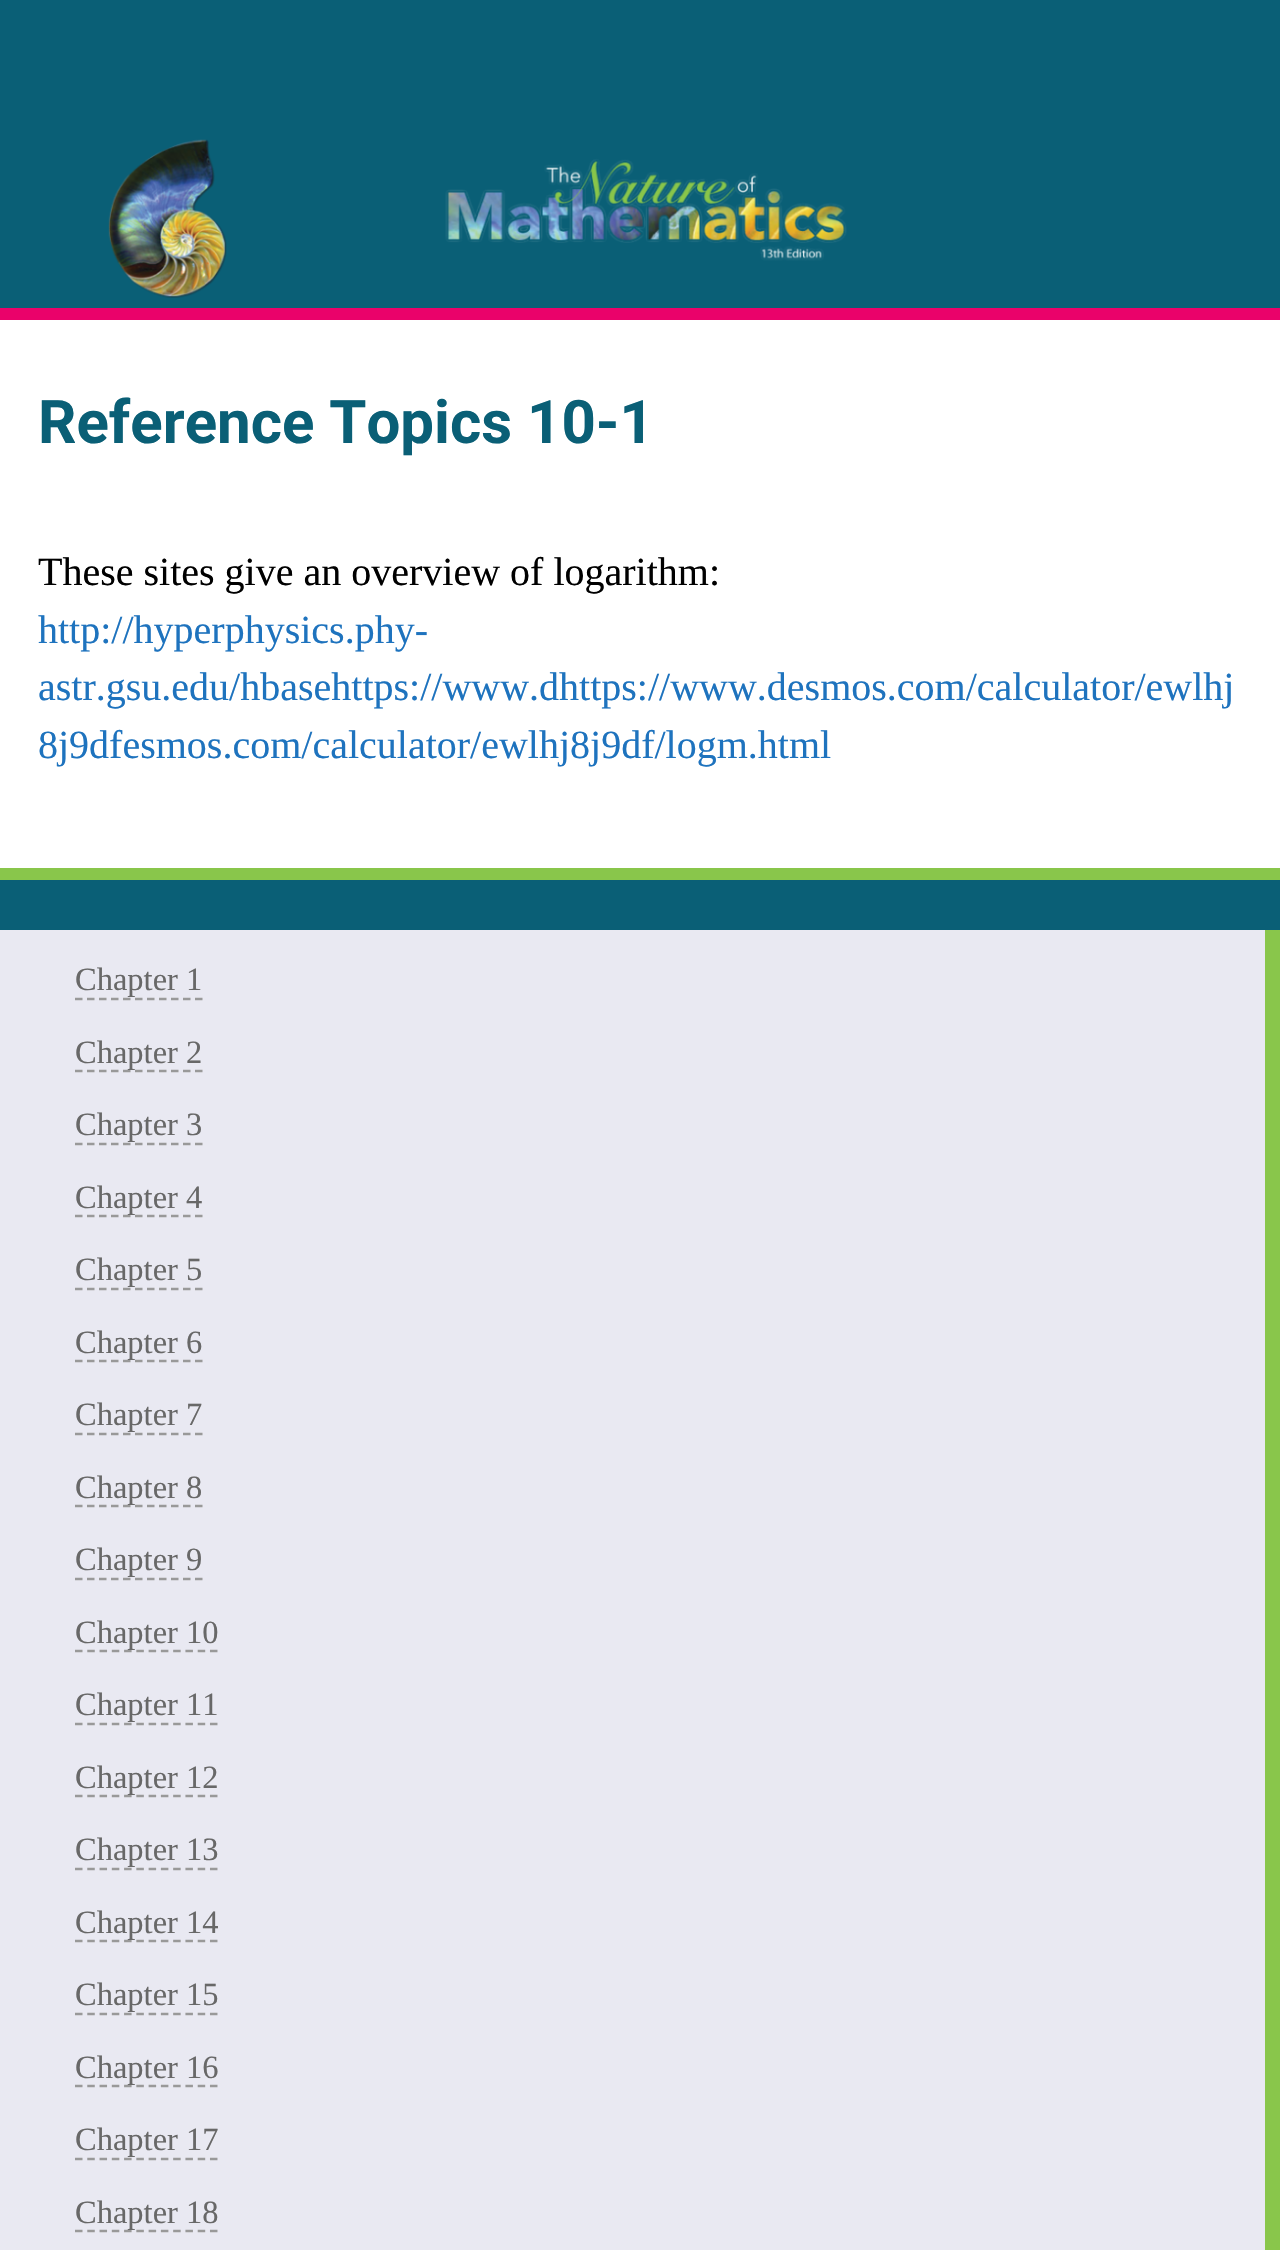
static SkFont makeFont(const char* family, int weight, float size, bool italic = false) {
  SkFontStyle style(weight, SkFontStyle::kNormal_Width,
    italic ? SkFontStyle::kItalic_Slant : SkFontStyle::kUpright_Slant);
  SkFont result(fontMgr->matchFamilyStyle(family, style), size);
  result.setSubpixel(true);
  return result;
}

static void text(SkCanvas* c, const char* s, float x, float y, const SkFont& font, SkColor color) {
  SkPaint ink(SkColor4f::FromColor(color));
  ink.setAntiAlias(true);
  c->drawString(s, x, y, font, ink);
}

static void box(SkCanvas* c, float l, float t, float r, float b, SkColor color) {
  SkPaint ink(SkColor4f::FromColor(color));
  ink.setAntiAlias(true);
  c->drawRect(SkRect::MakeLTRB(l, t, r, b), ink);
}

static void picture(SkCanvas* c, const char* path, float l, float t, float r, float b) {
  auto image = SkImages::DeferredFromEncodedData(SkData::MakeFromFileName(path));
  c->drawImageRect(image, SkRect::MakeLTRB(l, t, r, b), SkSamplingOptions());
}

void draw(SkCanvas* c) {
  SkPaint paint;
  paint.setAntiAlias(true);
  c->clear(0xff0a5f76);
  picture(c, "img_01.png", 108, 139, 847, 298);
  box(c, 0, 308, 1280, 320, 0xffea026a);
  box(c, 0, 868, 1280, 880, 0xff89c64b);
  box(c, 0, 320, 1280, 868, 0xffffffff);
  SkFont face1 = makeFont("Roboto", 700, 60);
  text(c, "Reference Topics 10-1", 38, 443, face1, 0xff0a5f76);
  SkFont face2 = makeFont("Liberation Serif", 400, 40);
  text(c, "These sites give an overview of logarithm:", 38, 585, face2, 0xff000000);
  text(c, "http://hyperphysics.phy-", 38, 643, face2, 0xff1e73be);
  text(c, "astr.gsu.edu/hbasehttps://www.dhttps://www.desmos.com/calculator/ewlhj", 38, 700, face2, 0xff1e73be);
  text(c, "8j9dfesmos.com/calculator/ewlhj8j9df/logm.html", 38, 758, face2, 0xff1e73be);
  box(c, 0, 930, 1265, 2250, 0xffe9e9f2);
  box(c, 1265, 930, 1280, 2250, 0xff89c64b);
  SkFont face3 = makeFont("Liberation Serif", 400, 32.5f);
  text(c, "Chapter 1", 75, 990, face3, 0xff686868);
  paint.setStyle(SkPaint::kStroke_Style);
  paint.setStrokeWidth(2.5f);
  paint.setColor(0xff999999);
  paint.setPathEffect(SkDashPathEffect::Make({{7.5f, 4.5f}}, 0));
  c->drawPath(SkPathBuilder().moveTo(75, 999).lineTo(202.5f, 999).detach(), paint);
  paint.setPathEffect(nullptr);
  paint.setPathEffect(SkDashPathEffect::Make({{7.5f, 4.5f}}, 0));
  c->drawPath(SkPathBuilder().moveTo(75, 1071).lineTo(202.5f, 1071).detach(), paint);
  paint.setPathEffect(nullptr);
  text(c, "Chapter 2", 75, 1063, face3, 0xff686868);
  text(c, "Chapter 3", 75, 1135, face3, 0xff686868);
  paint.setPathEffect(SkDashPathEffect::Make({{7.5f, 4.5f}}, 0));
  c->drawPath(SkPathBuilder().moveTo(75, 1144).lineTo(202.5f, 1144).detach(), paint);
  paint.setPathEffect(nullptr);
  paint.setPathEffect(SkDashPathEffect::Make({{7.5f, 4.5f}}, 0));
  c->drawPath(SkPathBuilder().moveTo(75, 1216).lineTo(202.5f, 1216).detach(), paint);
  paint.setPathEffect(nullptr);
  text(c, "Chapter 4", 75, 1208, face3, 0xff686868);
  text(c, "Chapter 5", 75, 1280, face3, 0xff686868);
  paint.setPathEffect(SkDashPathEffect::Make({{7.5f, 4.5f}}, 0));
  c->drawPath(SkPathBuilder().moveTo(75, 1289).lineTo(202.5f, 1289).detach(), paint);
  paint.setPathEffect(nullptr);
  paint.setPathEffect(SkDashPathEffect::Make({{7.5f, 4.5f}}, 0));
  c->drawPath(SkPathBuilder().moveTo(75, 1361).lineTo(202.5f, 1361).detach(), paint);
  paint.setPathEffect(nullptr);
  text(c, "Chapter 6", 75, 1353, face3, 0xff686868);
  text(c, "Chapter 7", 75, 1425, face3, 0xff686868);
  paint.setPathEffect(SkDashPathEffect::Make({{7.5f, 4.5f}}, 0));
  c->drawPath(SkPathBuilder().moveTo(75, 1434).lineTo(202.5f, 1434).detach(), paint);
  paint.setPathEffect(nullptr);
  paint.setPathEffect(SkDashPathEffect::Make({{7.5f, 4.5f}}, 0));
  c->drawPath(SkPathBuilder().moveTo(75, 1506).lineTo(202.5f, 1506).detach(), paint);
  paint.setPathEffect(nullptr);
  text(c, "Chapter 8", 75, 1498, face3, 0xff686868);
  text(c, "Chapter 9", 75, 1570, face3, 0xff686868);
  paint.setPathEffect(SkDashPathEffect::Make({{7.5f, 4.5f}}, 0));
  c->drawPath(SkPathBuilder().moveTo(75, 1579).lineTo(202.5f, 1579).detach(), paint);
  paint.setPathEffect(nullptr);
  paint.setPathEffect(SkDashPathEffect::Make({{7.5f, 4.77f}}, 0));
  c->drawPath(SkPathBuilder().moveTo(75, 1651).lineTo(217.5f, 1651).detach(), paint);
  paint.setPathEffect(nullptr);
  text(c, "Chapter 10", 75, 1643, face3, 0xff686868);
  text(c, "Chapter 11", 75, 1715, face3, 0xff686868);
  paint.setPathEffect(SkDashPathEffect::Make({{7.5f, 4.77f}}, 0));
  c->drawPath(SkPathBuilder().moveTo(75, 1724).lineTo(217.5f, 1724).detach(), paint);
  paint.setPathEffect(nullptr);
  paint.setPathEffect(SkDashPathEffect::Make({{7.5f, 4.77f}}, 0));
  c->drawPath(SkPathBuilder().moveTo(75, 1796).lineTo(217.5f, 1796).detach(), paint);
  paint.setPathEffect(nullptr);
  text(c, "Chapter 12", 75, 1788, face3, 0xff686868);
  text(c, "Chapter 13", 75, 1860, face3, 0xff686868);
  paint.setPathEffect(SkDashPathEffect::Make({{7.5f, 4.77f}}, 0));
  c->drawPath(SkPathBuilder().moveTo(75, 1869).lineTo(217.5f, 1869).detach(), paint);
  paint.setPathEffect(nullptr);
  paint.setPathEffect(SkDashPathEffect::Make({{7.5f, 4.77f}}, 0));
  c->drawPath(SkPathBuilder().moveTo(75, 1941).lineTo(217.5f, 1941).detach(), paint);
  paint.setPathEffect(nullptr);
  text(c, "Chapter 14", 75, 1933, face3, 0xff686868);
  text(c, "Chapter 15", 75, 2005, face3, 0xff686868);
  paint.setPathEffect(SkDashPathEffect::Make({{7.5f, 4.77f}}, 0));
  c->drawPath(SkPathBuilder().moveTo(75, 2014).lineTo(217.5f, 2014).detach(), paint);
  paint.setPathEffect(nullptr);
  paint.setPathEffect(SkDashPathEffect::Make({{7.5f, 4.77f}}, 0));
  c->drawPath(SkPathBuilder().moveTo(75, 2086).lineTo(217.5f, 2086).detach(), paint);
  paint.setPathEffect(nullptr);
  text(c, "Chapter 16", 75, 2078, face3, 0xff686868);
  text(c, "Chapter 17", 75, 2150, face3, 0xff686868);
  paint.setPathEffect(SkDashPathEffect::Make({{7.5f, 4.77f}}, 0));
  c->drawPath(SkPathBuilder().moveTo(75, 2159).lineTo(217.5f, 2159).detach(), paint);
  paint.setPathEffect(nullptr);
  paint.setPathEffect(SkDashPathEffect::Make({{7.5f, 4.77f}}, 0));
  c->drawPath(SkPathBuilder().moveTo(75, 2231).lineTo(217.5f, 2231).detach(), paint);
  paint.setPathEffect(nullptr);
  text(c, "Chapter 18", 75, 2223, face3, 0xff686868);
}
